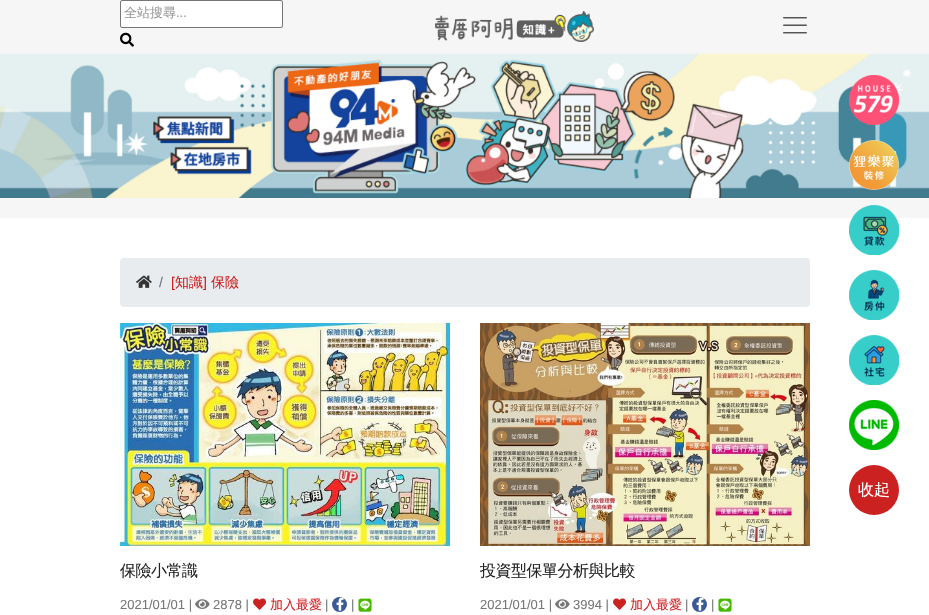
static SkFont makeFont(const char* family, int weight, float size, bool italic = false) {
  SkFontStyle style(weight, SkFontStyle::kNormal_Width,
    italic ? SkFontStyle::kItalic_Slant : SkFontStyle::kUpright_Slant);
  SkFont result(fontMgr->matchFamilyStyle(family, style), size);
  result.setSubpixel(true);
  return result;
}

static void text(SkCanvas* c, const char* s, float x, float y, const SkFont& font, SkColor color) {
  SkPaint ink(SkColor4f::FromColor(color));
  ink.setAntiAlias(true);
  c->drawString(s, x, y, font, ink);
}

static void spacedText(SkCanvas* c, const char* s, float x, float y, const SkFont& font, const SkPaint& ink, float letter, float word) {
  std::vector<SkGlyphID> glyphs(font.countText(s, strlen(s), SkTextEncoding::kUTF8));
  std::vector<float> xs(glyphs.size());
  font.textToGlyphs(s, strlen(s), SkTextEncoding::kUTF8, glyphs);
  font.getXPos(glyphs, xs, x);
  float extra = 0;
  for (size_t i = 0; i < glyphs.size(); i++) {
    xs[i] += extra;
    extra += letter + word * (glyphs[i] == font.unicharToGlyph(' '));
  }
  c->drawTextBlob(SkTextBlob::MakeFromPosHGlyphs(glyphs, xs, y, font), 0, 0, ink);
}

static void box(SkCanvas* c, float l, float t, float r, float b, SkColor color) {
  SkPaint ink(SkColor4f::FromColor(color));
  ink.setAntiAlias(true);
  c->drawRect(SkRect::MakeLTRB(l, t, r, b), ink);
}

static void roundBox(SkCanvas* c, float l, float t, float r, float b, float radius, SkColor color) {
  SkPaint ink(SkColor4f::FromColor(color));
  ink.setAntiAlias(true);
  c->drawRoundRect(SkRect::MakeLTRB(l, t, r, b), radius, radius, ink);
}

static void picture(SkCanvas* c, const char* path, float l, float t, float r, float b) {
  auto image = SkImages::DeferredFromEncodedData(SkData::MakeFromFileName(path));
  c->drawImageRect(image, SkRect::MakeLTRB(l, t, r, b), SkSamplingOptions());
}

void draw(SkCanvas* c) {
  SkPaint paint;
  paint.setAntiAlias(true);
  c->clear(0xfff6f6f6);
  paint.setColor(0xffffffff);
  c->drawRoundRect(SkRect::MakeLTRB(120.5f, 0.5f, 282.5f, 27.5f), 1.5f, 1.5f, paint);
  paint.setStyle(SkPaint::kStroke_Style);
  paint.setStrokeWidth(1);
  paint.setColor(0xff767676);
  c->drawRoundRect(SkRect::MakeLTRB(120.5f, 0.5f, 282.5f, 27.5f), 1.5f, 1.5f, paint);
  SkFont face1 = makeFont("WenQuanYi Zen Hei", 500, 13);
  text(c, "全站搜尋", 124, 17, face1, 0xff999999);
  SkFont face2 = makeFont("Liberation Sans", 400, 13);
  text(c, "...", 176, 17, face2, 0xff999999);
  picture(c, "img_01.png", 120, 32, 134, 47);
  picture(c, "img_02.png", 435, 11, 594, 42);
  picture(c, "img_03.png", 783, 17, 807, 34);
  picture(c, "img_04.png", 0, 53, 929, 198);
  box(c, 0, 218, 929, 615, 0xffffffff);
  roundBox(c, 120, 258, 810, 307, 4, 0xffe9ecef);
  picture(c, "img_05.png", 136, 275, 152, 288);
  SkFont face3 = makeFont("Liberation Sans", 400, 14);
  text(c, "/", 159, 287, face3, 0xff6c757d);
  text(c, "[", 171, 287, face3, 0xffcc2121);
  SkFont face4 = makeFont("WenQuanYi Zen Hei", 500, 14);
  text(c, "知識", 175, 287, face4, 0xffcc2121);
  text(c, "]", 203, 287, face3, 0xffcc2121);
  text(c, "保險", 211, 287, face4, 0xffcc2121);
  picture(c, "img_06.png", 120, 323, 450, 546);
  SkFont face5 = makeFont("WenQuanYi Zen Hei", 500, 16);
  paint.setStyle(SkPaint::kFill_Style);
  paint.setColor(0xff242424);
  spacedText(c, "保險小常識", 120, 576, face5, paint, -0.5f, 0);
  text(c, "2021/01/01 |", 120, 609, face2, 0xff777777);
  picture(c, "img_07.png", 195, 599, 210, 609);
  text(c, "2878 |", 213, 609, face2, 0xff777777);
  picture(c, "img_08.png", 253, 598, 266, 610);
  text(c, "加入最愛", 270, 609, face1, 0xffcc2121);
  text(c, "|", 325, 609, face2, 0xff777777);
  paint.setColor(0xff3b5999);
  c->drawCircle(339.5f, 604.5f, 7.5f, paint);
  picture(c, "img_09.png", 336, 597, 344, 611);
  text(c, "|", 351, 609, face2, 0xff777777);
  picture(c, "img_10.png", 358, 598, 372, 612);
  picture(c, "img_11.png", 480, 323, 810, 546);
  c->save();
  c->clipRect(SkRect::MakeLTRB(480, 561, 810, 582));
  paint.setColor(0xff242424);
  spacedText(c, "投資型保單分析與比較", 480, 576, face5, paint, -0.5f, 0);
  c->restore();
  text(c, "2021/01/01 |", 480, 609, face2, 0xff777777);
  picture(c, "img_07.png", 555, 599, 570, 609);
  text(c, "3994 |", 573, 609, face2, 0xff777777);
  picture(c, "img_08.png", 613, 598, 626, 610);
  text(c, "加入最愛", 630, 609, face1, 0xffcc2121);
  text(c, "|", 685, 609, face2, 0xff777777);
  paint.setColor(0xff3b5999);
  c->drawCircle(699.5f, 604.5f, 7.5f, paint);
  picture(c, "img_09.png", 696, 597, 704, 611);
  text(c, "|", 711, 609, face2, 0xff777777);
  picture(c, "img_10.png", 718, 598, 732, 612);
  picture(c, "img_12.png", 849, 75, 899, 125);
  picture(c, "img_13.png", 849, 140, 899, 190);
  picture(c, "img_14.png", 849, 205, 899, 255);
  picture(c, "img_15.png", 849, 270, 899, 320);
  picture(c, "img_16.png", 849, 335, 899, 385);
  picture(c, "img_17.png", 849, 400, 899, 450);
  paint.setColor(0xffcc2121);
  c->drawCircle(874, 490, 25, paint);
  text(c, "收起", 858, 495, face5, 0xffffffff);
}
